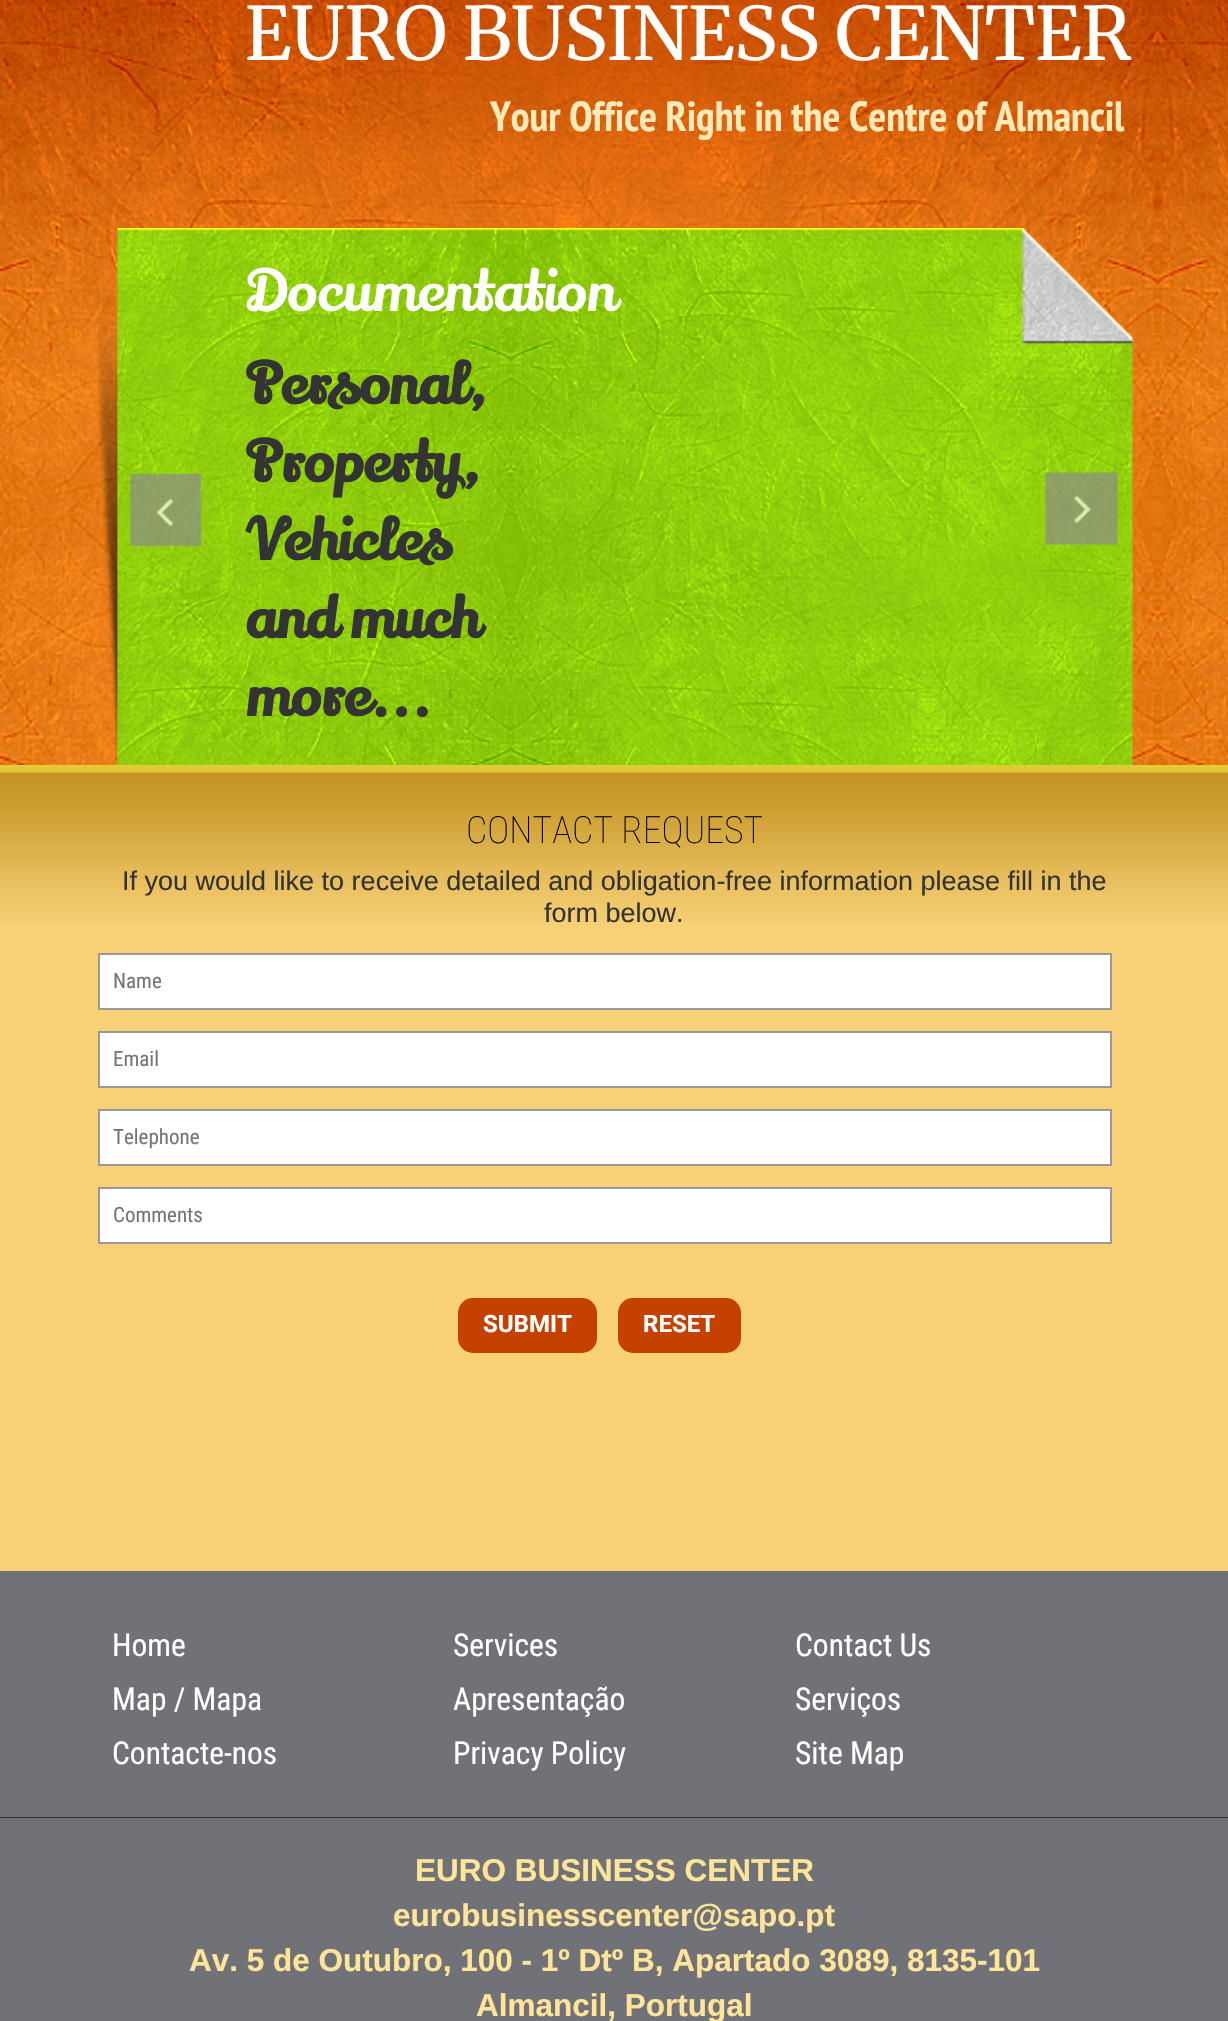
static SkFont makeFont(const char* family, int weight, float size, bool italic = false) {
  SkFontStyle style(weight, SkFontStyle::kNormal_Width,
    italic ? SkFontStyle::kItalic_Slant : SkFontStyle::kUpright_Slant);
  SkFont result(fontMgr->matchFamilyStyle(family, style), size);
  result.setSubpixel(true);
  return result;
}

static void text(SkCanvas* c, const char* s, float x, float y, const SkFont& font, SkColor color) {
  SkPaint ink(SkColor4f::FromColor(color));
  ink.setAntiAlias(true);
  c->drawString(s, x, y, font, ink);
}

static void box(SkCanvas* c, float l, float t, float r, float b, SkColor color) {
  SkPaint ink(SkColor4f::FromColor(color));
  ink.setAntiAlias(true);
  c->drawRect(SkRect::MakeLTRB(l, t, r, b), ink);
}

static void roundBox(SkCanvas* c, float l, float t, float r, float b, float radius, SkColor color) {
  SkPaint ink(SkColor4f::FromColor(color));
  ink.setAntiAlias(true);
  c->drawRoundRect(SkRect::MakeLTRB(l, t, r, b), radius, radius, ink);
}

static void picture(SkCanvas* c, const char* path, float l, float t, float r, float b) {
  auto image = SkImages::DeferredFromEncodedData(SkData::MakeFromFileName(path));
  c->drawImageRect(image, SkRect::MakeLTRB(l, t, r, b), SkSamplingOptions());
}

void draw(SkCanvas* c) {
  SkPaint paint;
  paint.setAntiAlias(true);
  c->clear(0xffffffff);
  picture(c, "img_01.png", 0, 0, 1228, 765);
  SkFont face1 = makeFont("Merriweather", 400, 73.5f);
  text(c, "EURO BUSINESS CENTER", 245, 60, face1, 0xffffffff);
  SkFont face2 = makeFont("PT Sans Narrow", 700, 42);
  text(c, "Your Office Right in the Centre of Almancil", 490, 131, face2, 0xfffee9b9);
  picture(c, "img_02.png", 97, 228, 1133, 765);
  picture(c, "img_03.png", 130, 473, 202, 547);
  SkFont face3 = makeFont("Lily Script One", 400, 56.75f);
  text(c, "Documentation", 245, 311, face3, 0xffffffff);
  SkFont face4 = makeFont("Lily Script One", 700, 56.75f);
  text(c, "Personal,", 245, 404, face4, 0xff333333);
  text(c, "Property,", 245, 482, face4, 0xff333333);
  text(c, "Vehicles", 245, 560, face4, 0xff333333);
  text(c, "and much", 245, 638, face4, 0xff333333);
  text(c, "more...", 245, 716, face4, 0xff333333);
  picture(c, "img_04.png", 1045, 472, 1118, 545);
  box(c, 0, 922, 1228, 1571, 0xfff8d176);
  picture(c, "img_05.png", 0, 765, 1228, 922);
  SkFont face5 = makeFont("Roboto Condensed", 100, 37.5f);
  text(c, "CONTACT REQUEST", 466, 843, face5, 0xff000000);
  SkFont face6 = makeFont("Liberation Sans", 400, 27);
  text(c, "If you would like to receive detailed and obligation-free information please fill in the", 122, 890, face6, 0xff333333);
  text(c, "form below.", 544, 922, face6, 0xff333333);
  paint.setColor(0xffffffff);
  c->drawRect(SkRect::MakeLTRB(99, 954, 1111, 1009), paint);
  paint.setStyle(SkPaint::kStroke_Style);
  paint.setStrokeWidth(2);
  paint.setColor(0xff999999);
  c->drawRect(SkRect::MakeLTRB(99, 954, 1111, 1009), paint);
  SkFont face7 = makeFont("Roboto Condensed", 400, 21);
  text(c, "Name", 113, 988, face7, 0xff757575);
  paint.setStyle(SkPaint::kFill_Style);
  paint.setColor(0xffffffff);
  c->drawRect(SkRect::MakeLTRB(99, 1032, 1111, 1087), paint);
  paint.setStyle(SkPaint::kStroke_Style);
  paint.setColor(0xff999999);
  c->drawRect(SkRect::MakeLTRB(99, 1032, 1111, 1087), paint);
  text(c, "Email", 113, 1066, face7, 0xff757575);
  paint.setStyle(SkPaint::kFill_Style);
  paint.setColor(0xffffffff);
  c->drawRect(SkRect::MakeLTRB(99, 1110, 1111, 1165), paint);
  paint.setStyle(SkPaint::kStroke_Style);
  paint.setColor(0xff999999);
  c->drawRect(SkRect::MakeLTRB(99, 1110, 1111, 1165), paint);
  text(c, "Telephone", 113, 1144, face7, 0xff757575);
  paint.setStyle(SkPaint::kFill_Style);
  paint.setColor(0xffffffff);
  c->drawRect(SkRect::MakeLTRB(99, 1188, 1111, 1243), paint);
  paint.setStyle(SkPaint::kStroke_Style);
  paint.setColor(0xff999999);
  c->drawRect(SkRect::MakeLTRB(99, 1188, 1111, 1243), paint);
  text(c, "Comments", 113, 1222, face7, 0xff757575);
  roundBox(c, 458, 1298, 597, 1353, 15, 0xffc54100);
  SkFont face8 = makeFont("Roboto", 700, 24);
  text(c, "SUBMIT", 483, 1332, face8, 0xffffffff);
  roundBox(c, 618, 1298, 741, 1353, 15, 0xffc54100);
  text(c, "RESET", 643, 1332, face8, 0xffffffff);
  box(c, 0, 1571, 1228, 1817, 0xff717277);
  box(c, 0, 1817, 1228, 1818, 0xff333333);
  SkFont face9 = makeFont("Roboto Condensed", 400, 31.5f);
  text(c, "Home", 112, 1656, face9, 0xffffffff);
  text(c, "Services", 453, 1656, face9, 0xffffffff);
  text(c, "Contact Us", 795, 1656, face9, 0xffffffff);
  text(c, "Map / Mapa", 112, 1710, face9, 0xffffffff);
  text(c, "Apresentação", 453, 1710, face9, 0xffffffff);
  text(c, "Serviços", 795, 1710, face9, 0xffffffff);
  text(c, "Contacte-nos", 112, 1764, face9, 0xffffffff);
  text(c, "Privacy Policy", 453, 1764, face9, 0xffffffff);
  text(c, "Site Map", 795, 1764, face9, 0xffffffff);
  box(c, 0, 1818, 1228, 2021, 0xff717277);
  SkFont face10 = makeFont("Liberation Sans", 700, 31.5f);
  text(c, "EURO BUSINESS CENTER", 415, 1881, face10, 0xffffe599);
  text(c, "eurobusinesscenter@sapo.pt", 393, 1926, face10, 0xffffe599);
  text(c, "Av. 5 de Outubro, 100 - 1º Dtº B, Apartado 3089, 8135-101", 189, 1971, face10, 0xffffe599);
  text(c, "Almancil, Portugal", 476, 2016, face10, 0xffffe599);
}
